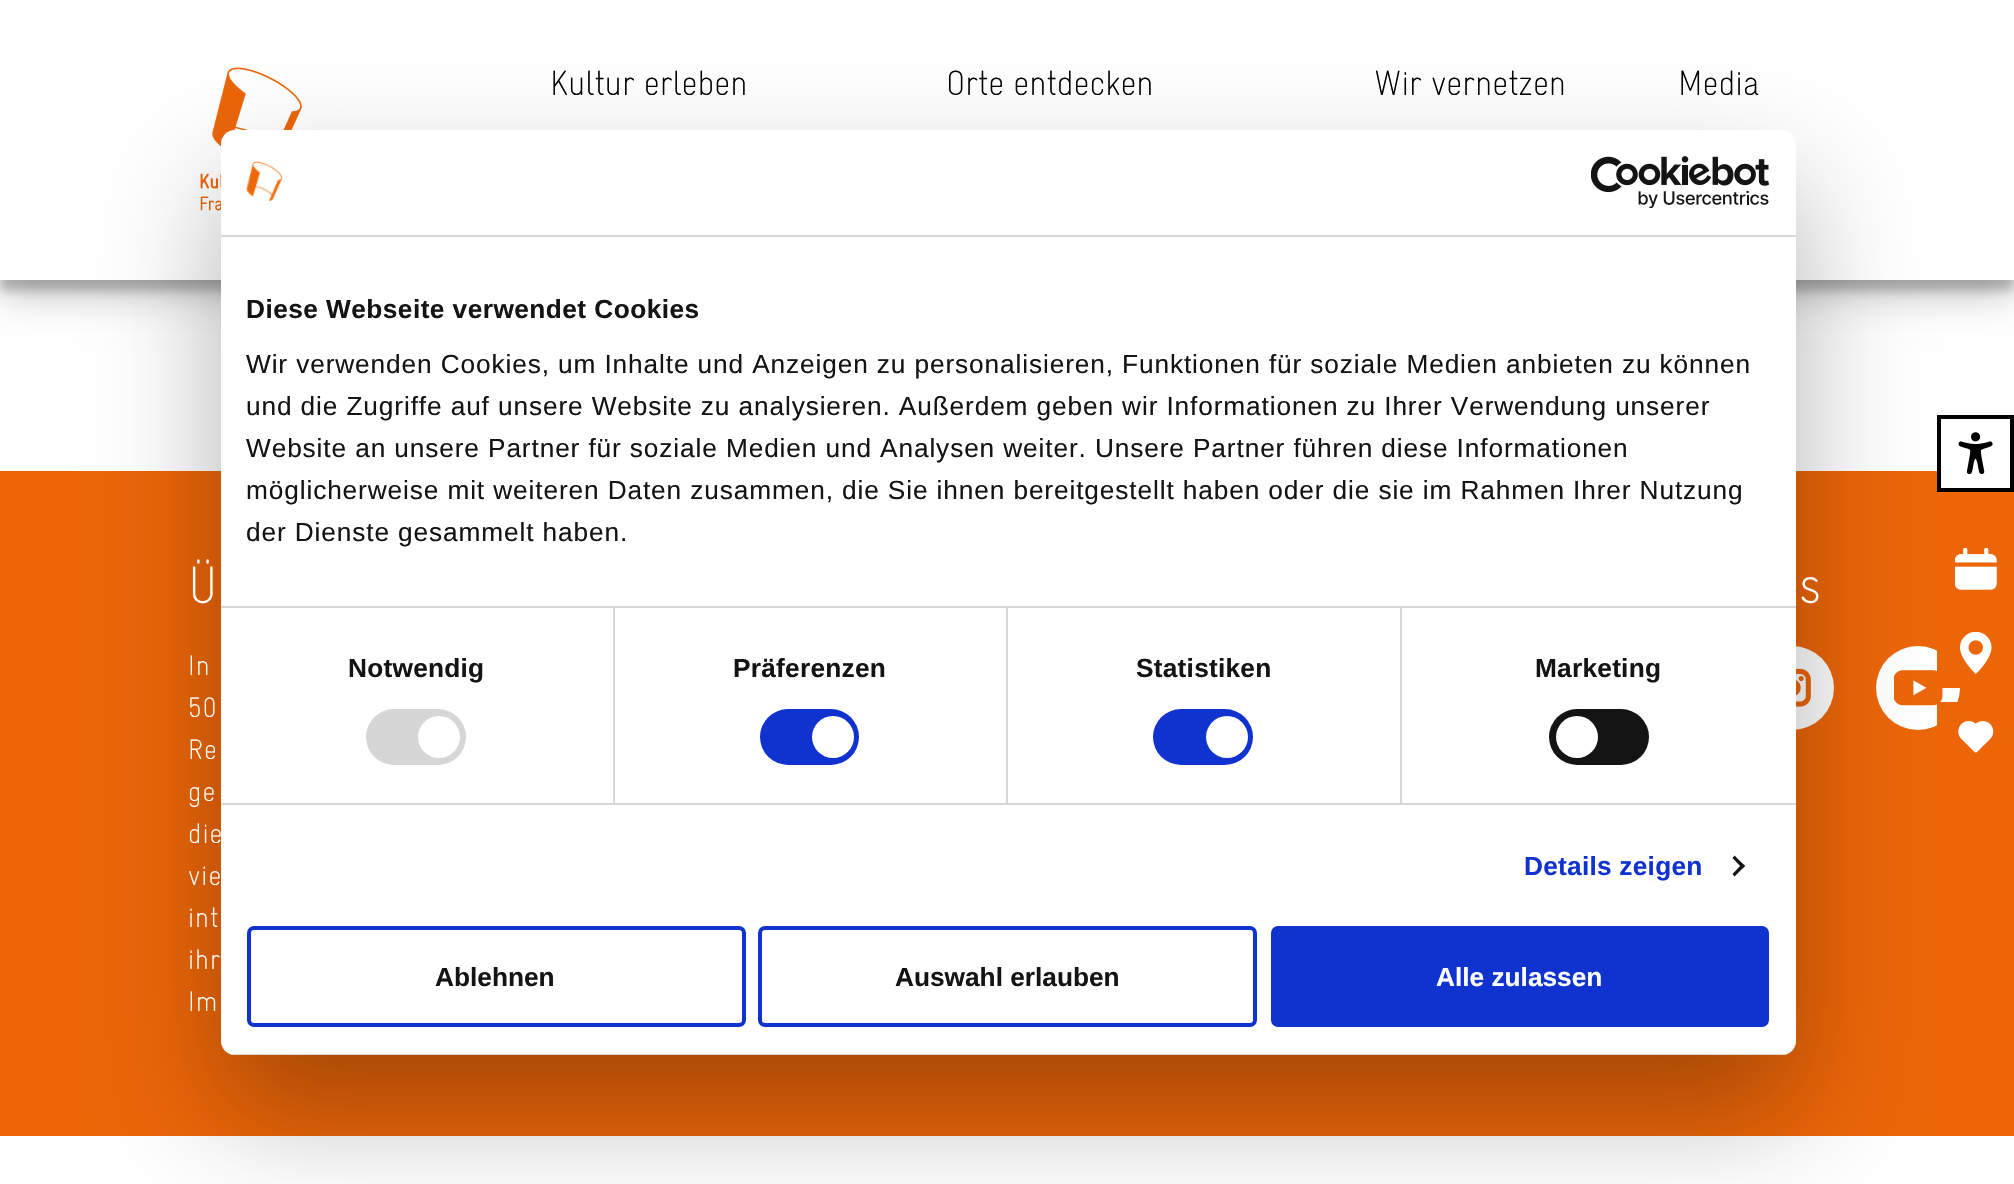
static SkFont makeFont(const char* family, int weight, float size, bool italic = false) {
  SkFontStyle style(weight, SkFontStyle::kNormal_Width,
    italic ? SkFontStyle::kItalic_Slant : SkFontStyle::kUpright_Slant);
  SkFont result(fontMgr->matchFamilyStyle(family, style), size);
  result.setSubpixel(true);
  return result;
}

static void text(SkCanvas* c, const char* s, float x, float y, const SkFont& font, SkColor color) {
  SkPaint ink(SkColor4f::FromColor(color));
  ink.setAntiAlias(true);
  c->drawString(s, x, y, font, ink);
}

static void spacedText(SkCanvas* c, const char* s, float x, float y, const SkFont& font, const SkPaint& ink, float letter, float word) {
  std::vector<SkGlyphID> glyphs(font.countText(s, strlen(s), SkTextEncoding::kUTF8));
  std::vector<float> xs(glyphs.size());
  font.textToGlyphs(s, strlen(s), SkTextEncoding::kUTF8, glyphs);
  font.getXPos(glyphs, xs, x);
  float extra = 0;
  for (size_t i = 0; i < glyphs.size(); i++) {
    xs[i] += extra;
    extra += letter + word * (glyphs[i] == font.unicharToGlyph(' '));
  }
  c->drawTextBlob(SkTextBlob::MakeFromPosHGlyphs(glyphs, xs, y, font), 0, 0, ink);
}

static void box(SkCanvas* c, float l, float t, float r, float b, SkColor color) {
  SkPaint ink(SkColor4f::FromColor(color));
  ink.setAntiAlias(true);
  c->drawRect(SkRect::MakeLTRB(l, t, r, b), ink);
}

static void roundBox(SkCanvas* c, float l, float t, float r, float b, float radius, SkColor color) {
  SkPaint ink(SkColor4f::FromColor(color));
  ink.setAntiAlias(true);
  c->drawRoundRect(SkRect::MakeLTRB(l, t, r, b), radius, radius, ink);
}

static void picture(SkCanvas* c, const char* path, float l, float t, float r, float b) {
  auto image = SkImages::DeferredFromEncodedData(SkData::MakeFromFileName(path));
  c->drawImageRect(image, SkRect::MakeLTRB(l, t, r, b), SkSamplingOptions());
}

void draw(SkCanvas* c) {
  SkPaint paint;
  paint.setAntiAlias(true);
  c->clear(0xffffffff);
  paint.setColor(0x3b000000);
  paint.setMaskFilter(SkMaskFilter::MakeBlur(kNormal_SkBlurStyle, 5));
  c->drawRect(SkRect::MakeLTRB(0, 11, 2014, 291), paint);
  paint.setMaskFilter(nullptr);
  paint.setColor(0x30000000);
  paint.setMaskFilter(SkMaskFilter::MakeBlur(kNormal_SkBlurStyle, 17.5f));
  c->drawRect(SkRect::MakeLTRB(0, 18, 2014, 298), paint);
  paint.setMaskFilter(nullptr);
  box(c, 0, 0, 2014, 280, 0xffffffff);
  picture(c, "img_01.png", 200, 67, 302, 211);
  SkFont face1 = makeFont("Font", 300, 35);
  text(c, "Kultur erleben", 550, 95, face1, 0xff000000);
  text(c, "Orte entdecken", 946, 95, face1, 0xff000000);
  text(c, "Wir vernetzen", 1374, 95, face1, 0xff000000);
  text(c, "Media", 1678, 95, face1, 0xff000000);
  box(c, 0, 471, 2014, 1136, 0xffec6608);
  box(c, 1941, 471, 2010, 488, 0xffffffff);
  paint.setStyle(SkPaint::kStroke_Style);
  paint.setStrokeWidth(4);
  paint.setColor(0xff000000);
  c->drawRect(SkRect::MakeLTRB(1939, 417, 2012, 490), paint);
  picture(c, "img_04.png", 1958, 432, 1993, 474);
  picture(c, "img_05.png", 1955, 548, 1997, 590);
  paint.setStyle(SkPaint::kFill_Style);
  paint.setColor(0xffffffff);
  c->drawCircle(1918, 688, 42, paint);
  picture(c, "img_09.png", 1894, 670, 1943, 706);
  box(c, 1937, 650, 1960, 688, 0xffec6608);
  picture(c, "img_06.png", 1960, 632, 1992, 674);
  box(c, 1937, 702, 1958, 726, 0xffec6608);
  picture(c, "img_07.png", 1958, 721, 1994, 753);
  c->drawCircle(1792, 688, 42, paint);
  picture(c, "img_08.png", 1796, 668, 1811, 707);
  paint.setColor(0x4d000000);
  paint.setMaskFilter(SkMaskFilter::MakeBlur(kNormal_SkBlurStyle, 59.5f));
  c->drawRoundRect(SkRect::MakeLTRB(221, 186, 1796, 1111), 14, 14, paint);
  paint.setMaskFilter(nullptr);
  roundBox(c, 221, 130, 1796, 1055, 14, 0xffffffff);
  box(c, 221, 235, 1796, 237, 0xffd6d6d6);
  picture(c, "img_02.png", 246, 161, 283, 202);
  picture(c, "img_03.png", 1591, 156, 1769, 208);
  box(c, 613, 607, 615, 803, 0xffd6d6d6);
  box(c, 1006, 607, 1008, 803, 0xffd6d6d6);
  box(c, 1400, 607, 1402, 803, 0xffd6d6d6);
  box(c, 221, 606, 1796, 608, 0xffd6d6d6);
  SkFont face2 = makeFont("Liberation Sans", 700, 26.25f);
  paint.setColor(0xff141414);
  spacedText(c, "Diese Webseite verwendet Cookies", 246, 318, face2, paint, 0.45f, 0);
  SkFont face3 = makeFont("Liberation Sans", 400, 26.25f);
  spacedText(c, "Wir verwenden Cookies, um Inhalte und Anzeigen zu personalisieren, Funktionen für soziale Medien anbieten zu können", 246, 373, face3, paint, 0.88f, 0);
  spacedText(c, "und die Zugriffe auf unsere Website zu analysieren. Außerdem geben wir Informationen zu Ihrer Verwendung unserer", 246, 415, face3, paint, 0.88f, 0);
  spacedText(c, "Website an unsere Partner für soziale Medien und Analysen weiter. Unsere Partner führen diese Informationen", 246, 457, face3, paint, 0.88f, 0);
  spacedText(c, "möglicherweise mit weiteren Daten zusammen, die Sie ihnen bereitgestellt haben oder die sie im Rahmen Ihrer Nutzung", 246, 499, face3, paint, 0.88f, 0);
  spacedText(c, "der Dienste gesammelt haben.", 246, 541, face3, paint, 0.88f, 0);
  box(c, 221, 803, 1796, 805, 0xffd6d6d6);
  spacedText(c, "Notwendig", 348, 677, face2, paint, 0.25f, 0);
  roundBox(c, 366, 709, 466, 765, 28, 0xffd6d6d6);
  paint.setColor(0xffffffff);
  c->drawCircle(439, 737, 21, paint);
  paint.setColor(0xff141414);
  spacedText(c, "Präferenzen", 733, 677, face2, paint, 0.25f, 0);
  roundBox(c, 760, 709, 859, 765, 28, 0xff1032cf);
  paint.setColor(0xffffffff);
  c->drawCircle(833, 737, 21, paint);
  paint.setColor(0xff141414);
  spacedText(c, "Statistiken", 1136, 677, face2, paint, 0.25f, 0);
  roundBox(c, 1153, 709, 1253, 765, 28, 0xff1032cf);
  paint.setColor(0xffffffff);
  c->drawCircle(1227, 737, 21, paint);
  paint.setColor(0xff141414);
  spacedText(c, "Marketing", 1535, 677, face2, paint, 0.25f, 0);
  roundBox(c, 1549, 709, 1649, 765, 28, 0xff141414);
  paint.setColor(0xffffffff);
  c->drawCircle(1577, 737, 21, paint);
  paint.setColor(0xff1032cf);
  spacedText(c, "Details zeigen", 1524, 875, face2, paint, 0.25f, 0);
  paint.setColor(0xff141414);
  c->drawPath(SkPathBuilder().moveTo(1734.5f, 855.5f).lineTo(1745, 866).lineTo(1742.5f, 868.5f).lineTo(1732.5f, 858).close().detach(), paint);
  c->drawPath(SkPathBuilder().moveTo(1742.5f, 863.5f).lineTo(1745, 866).lineTo(1734.5f, 876.5f).lineTo(1732.5f, 874).close().detach(), paint);
  c->save();
  c->clipPath(SkPathBuilder().moveTo(235, 130).lineTo(1782, 130).cubicTo(1789.5f, 130, 1796, 136.5f, 1796, 144).lineTo(1796, 1041).cubicTo(1796, 1048.5f, 1789.5f, 1055, 1782, 1055).lineTo(235, 1055).cubicTo(227.5f, 1055, 221, 1048.5f, 221, 1041).lineTo(221, 144).cubicTo(221, 136.5f, 227.5f, 130, 235, 130).close().detach(), true);
  box(c, 230, 1054, 1787, 1055, 0xffd6d6d6);
  c->restore();
  paint.setStyle(SkPaint::kStroke_Style);
  paint.setColor(0xff1032cf);
  c->drawRoundRect(SkRect::MakeLTRB(249, 928, 744, 1025), 5, 5, paint);
  text(c, "Ablehnen", 435, 986, face2, 0xff141414);
  c->drawRoundRect(SkRect::MakeLTRB(760, 928, 1255, 1025), 5, 5, paint);
  text(c, "Auswahl erlauben", 895, 986, face2, 0xff141414);
  paint.setStyle(SkPaint::kFill_Style);
  c->drawRoundRect(SkRect::MakeLTRB(1273, 928, 1767, 1025), 5, 5, paint);
  paint.setStyle(SkPaint::kStroke_Style);
  c->drawRoundRect(SkRect::MakeLTRB(1273, 928, 1767, 1025), 5, 5, paint);
  text(c, "Alle zulassen", 1436, 986, face2, 0xffffffff);
  SkFont face4 = makeFont("Font", 300, 52);
  text(c, "Ü", 188, 603, face4, 0xffffffff);
  SkFont face5 = makeFont("Font", 300, 28);
  paint.setStyle(SkPaint::kFill_Style);
  paint.setColor(0xffffffff);
  spacedText(c, "In", 188, 675, face5, paint, 1, 0);
  spacedText(c, "50", 188, 717, face5, paint, 1, 0);
  spacedText(c, "Re", 188, 759, face5, paint, 1, 0);
  spacedText(c, "ge", 188, 801, face5, paint, 1, 0);
  spacedText(c, "die", 188, 843, face5, paint, 1, 0);
  spacedText(c, "vie", 188, 885, face5, paint, 1, 0);
  spacedText(c, "int", 188, 927, face5, paint, 1, 0);
  spacedText(c, "ihr", 188, 969, face5, paint, 1, 0);
  spacedText(c, "Im", 188, 1011, face5, paint, 1, 0);
  text(c, "s", 1799, 603, face4, 0xffffffff);
}
